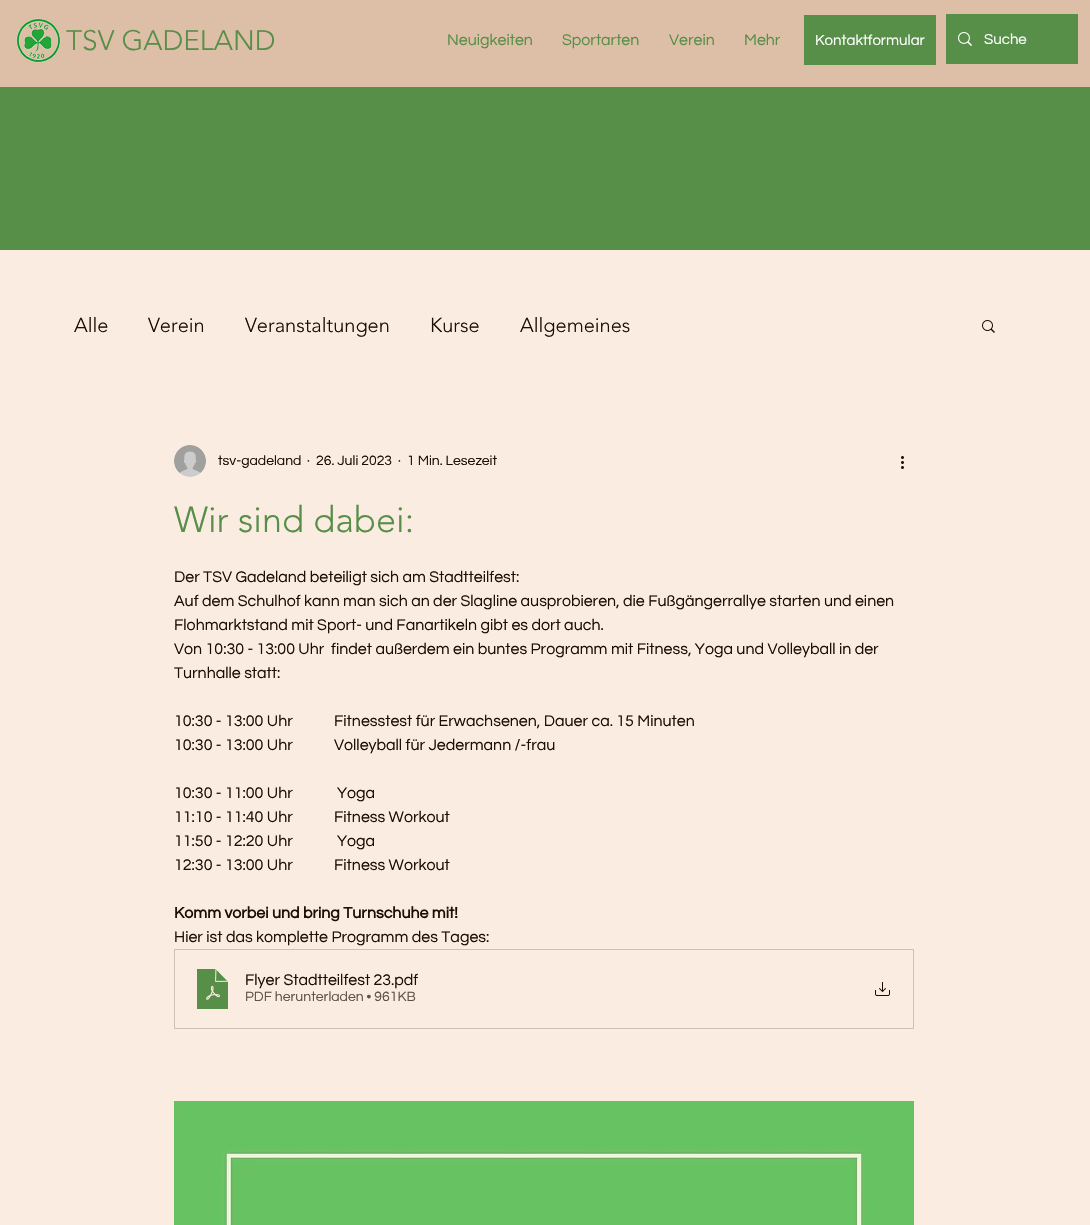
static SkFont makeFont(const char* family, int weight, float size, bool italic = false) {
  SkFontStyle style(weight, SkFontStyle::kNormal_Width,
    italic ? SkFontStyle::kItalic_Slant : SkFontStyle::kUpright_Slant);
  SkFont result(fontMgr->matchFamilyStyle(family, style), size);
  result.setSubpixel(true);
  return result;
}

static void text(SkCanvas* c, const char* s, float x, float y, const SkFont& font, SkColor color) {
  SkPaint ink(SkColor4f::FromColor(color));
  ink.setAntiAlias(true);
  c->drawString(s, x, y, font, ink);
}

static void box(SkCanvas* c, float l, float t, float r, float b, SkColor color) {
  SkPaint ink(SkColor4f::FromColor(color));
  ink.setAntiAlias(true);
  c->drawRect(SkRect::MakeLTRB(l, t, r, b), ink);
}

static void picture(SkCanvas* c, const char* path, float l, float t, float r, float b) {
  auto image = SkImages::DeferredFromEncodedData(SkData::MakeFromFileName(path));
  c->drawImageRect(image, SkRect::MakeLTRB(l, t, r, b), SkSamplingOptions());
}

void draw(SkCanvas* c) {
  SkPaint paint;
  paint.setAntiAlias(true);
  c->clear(0xfffaece1);
  box(c, 0, 0, 1090, 87, 0xffddbea6);
  picture(c, "img_01.png", 16, 18, 61, 63);
  SkFont face1 = makeFont("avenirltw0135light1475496", 300, 28);
  text(c, "TSV GADELAND", 66, 50, face1, 0xff578e48);
  SkFont face2 = makeFont("Questrial", 400, 16);
  text(c, "Neuigkeiten", 447, 45, face2, 0xff578e48);
  text(c, "Sportarten", 562, 45, face2, 0xff578e48);
  text(c, "Verein", 669, 45, face2, 0xff578e48);
  text(c, "Mehr", 744, 45, face2, 0xff578e48);
  box(c, 804, 15, 936, 65, 0xff578e48);
  SkFont face3 = makeFont("Questrial", 400, 15);
  text(c, "Kontaktformular", 815, 45, face3, 0xffffffff);
  box(c, 946, 14, 1078, 64, 0xff578e48);
  picture(c, "img_02.png", 958, 32, 972, 46);
  text(c, "Suche", 984, 44, face3, 0xffffffff);
  box(c, 0, 87, 1090, 250, 0xff578e48);
  SkFont face4 = makeFont("avenirltw0135light1475496", 300, 20);
  text(c, "Alle", 74, 332, face4, 0xff1d0e03);
  text(c, "Verein", 148, 332, face4, 0xff1d0e03);
  text(c, "Veranstaltungen", 245, 332, face4, 0xff1d0e03);
  text(c, "Kurse", 430, 332, face4, 0xff1d0e03);
  text(c, "Allgemeines", 520, 332, face4, 0xff1d0e03);
  picture(c, "img_03.png", 982, 320, 995, 333);
  picture(c, "img_04.png", 174, 445, 206, 477);
  SkFont face5 = makeFont("Questrial", 400, 14);
  text(c, "tsv-gadeland", 218, 465, face5, 0xff1d0e03);
  text(c, "·", 307, 465, face5, 0xff1d0e03);
  text(c, "26. Juli 2023", 316, 465, face5, 0xff1d0e03);
  text(c, "·", 398, 465, face5, 0xff1d0e03);
  text(c, "1 Min. Lesezeit", 407, 465, face5, 0xff1d0e03);
  picture(c, "img_05.png", 901, 456, 904, 469);
  SkFont face6 = makeFont("avenirltw0135light1475496", 300, 36);
  text(c, "Wir sind dabei:", 174, 532, face6, 0xff578e48);
  text(c, "Der TSV Gadeland beteiligt sich am Stadtteilfest:", 174, 582, face2, 0xff1d0e03);
  text(c, "Auf dem Schulhof kann man sich an der Slagline ausprobieren, die Fußgängerrallye starten und einen", 174, 606, face2, 0xff1d0e03);
  text(c, "Flohmarktstand mit Sport- und Fanartikeln gibt es dort auch.", 174, 630, face2, 0xff1d0e03);
  text(c, "Von 10:30 - 13:00 Uhr  findet außerdem ein buntes Programm mit Fitness, Yoga und Volleyball in der", 174, 654, face2, 0xff1d0e03);
  text(c, "Turnhalle statt:", 174, 678, face2, 0xff1d0e03);
  text(c, "10:30 - 13:00 Uhr", 174, 726, face2, 0xff1d0e03);
  text(c, "Fitnesstest für Erwachsenen, Dauer ca. 15 Minuten", 334, 726, face2, 0xff1d0e03);
  text(c, "10:30 - 13:00 Uhr", 174, 750, face2, 0xff1d0e03);
  text(c, "Volleyball für Jedermann /-frau", 334, 750, face2, 0xff1d0e03);
  text(c, "10:30 - 11:00 Uhr", 174, 798, face2, 0xff1d0e03);
  text(c, "Yoga", 337, 798, face2, 0xff1d0e03);
  text(c, "11:10 - 11:40 Uhr", 174, 822, face2, 0xff1d0e03);
  text(c, "Fitness Workout", 334, 822, face2, 0xff1d0e03);
  text(c, "11:50 - 12:20 Uhr", 174, 846, face2, 0xff1d0e03);
  text(c, "Yoga", 337, 846, face2, 0xff1d0e03);
  text(c, "12:30 - 13:00 Uhr", 174, 870, face2, 0xff1d0e03);
  text(c, "Fitness Workout", 334, 870, face2, 0xff1d0e03);
  SkFont face7 = makeFont("Questrial", 700, 16);
  text(c, "Komm vorbei und bring Turnschuhe mit!", 174, 918, face7, 0xff1d0e03);
  text(c, "Hier ist das komplette Programm des Tages:", 174, 942, face2, 0xff1d0e03);
  paint.setStyle(SkPaint::kStroke_Style);
  paint.setStrokeWidth(1);
  paint.setColor(0xffcec0b5);
  c->drawRect(SkRect::MakeLTRB(174.5f, 949.5f, 913.5f, 1028.5f), paint);
  picture(c, "img_06.png", 196, 968, 229, 1010);
  text(c, "Flyer Stadtteilfest 23", 245, 985, face2, 0xff1d0e03);
  text(c, ".pdf", 391, 985, face2, 0xff1d0e03);
  text(c, "PDF herunterladen • 961KB", 245, 1001, face5, 0xff5f5146);
  picture(c, "img_07.png", 875, 982, 890, 996);
  picture(c, "img_08.png", 174, 1101, 914, 1225);
}
